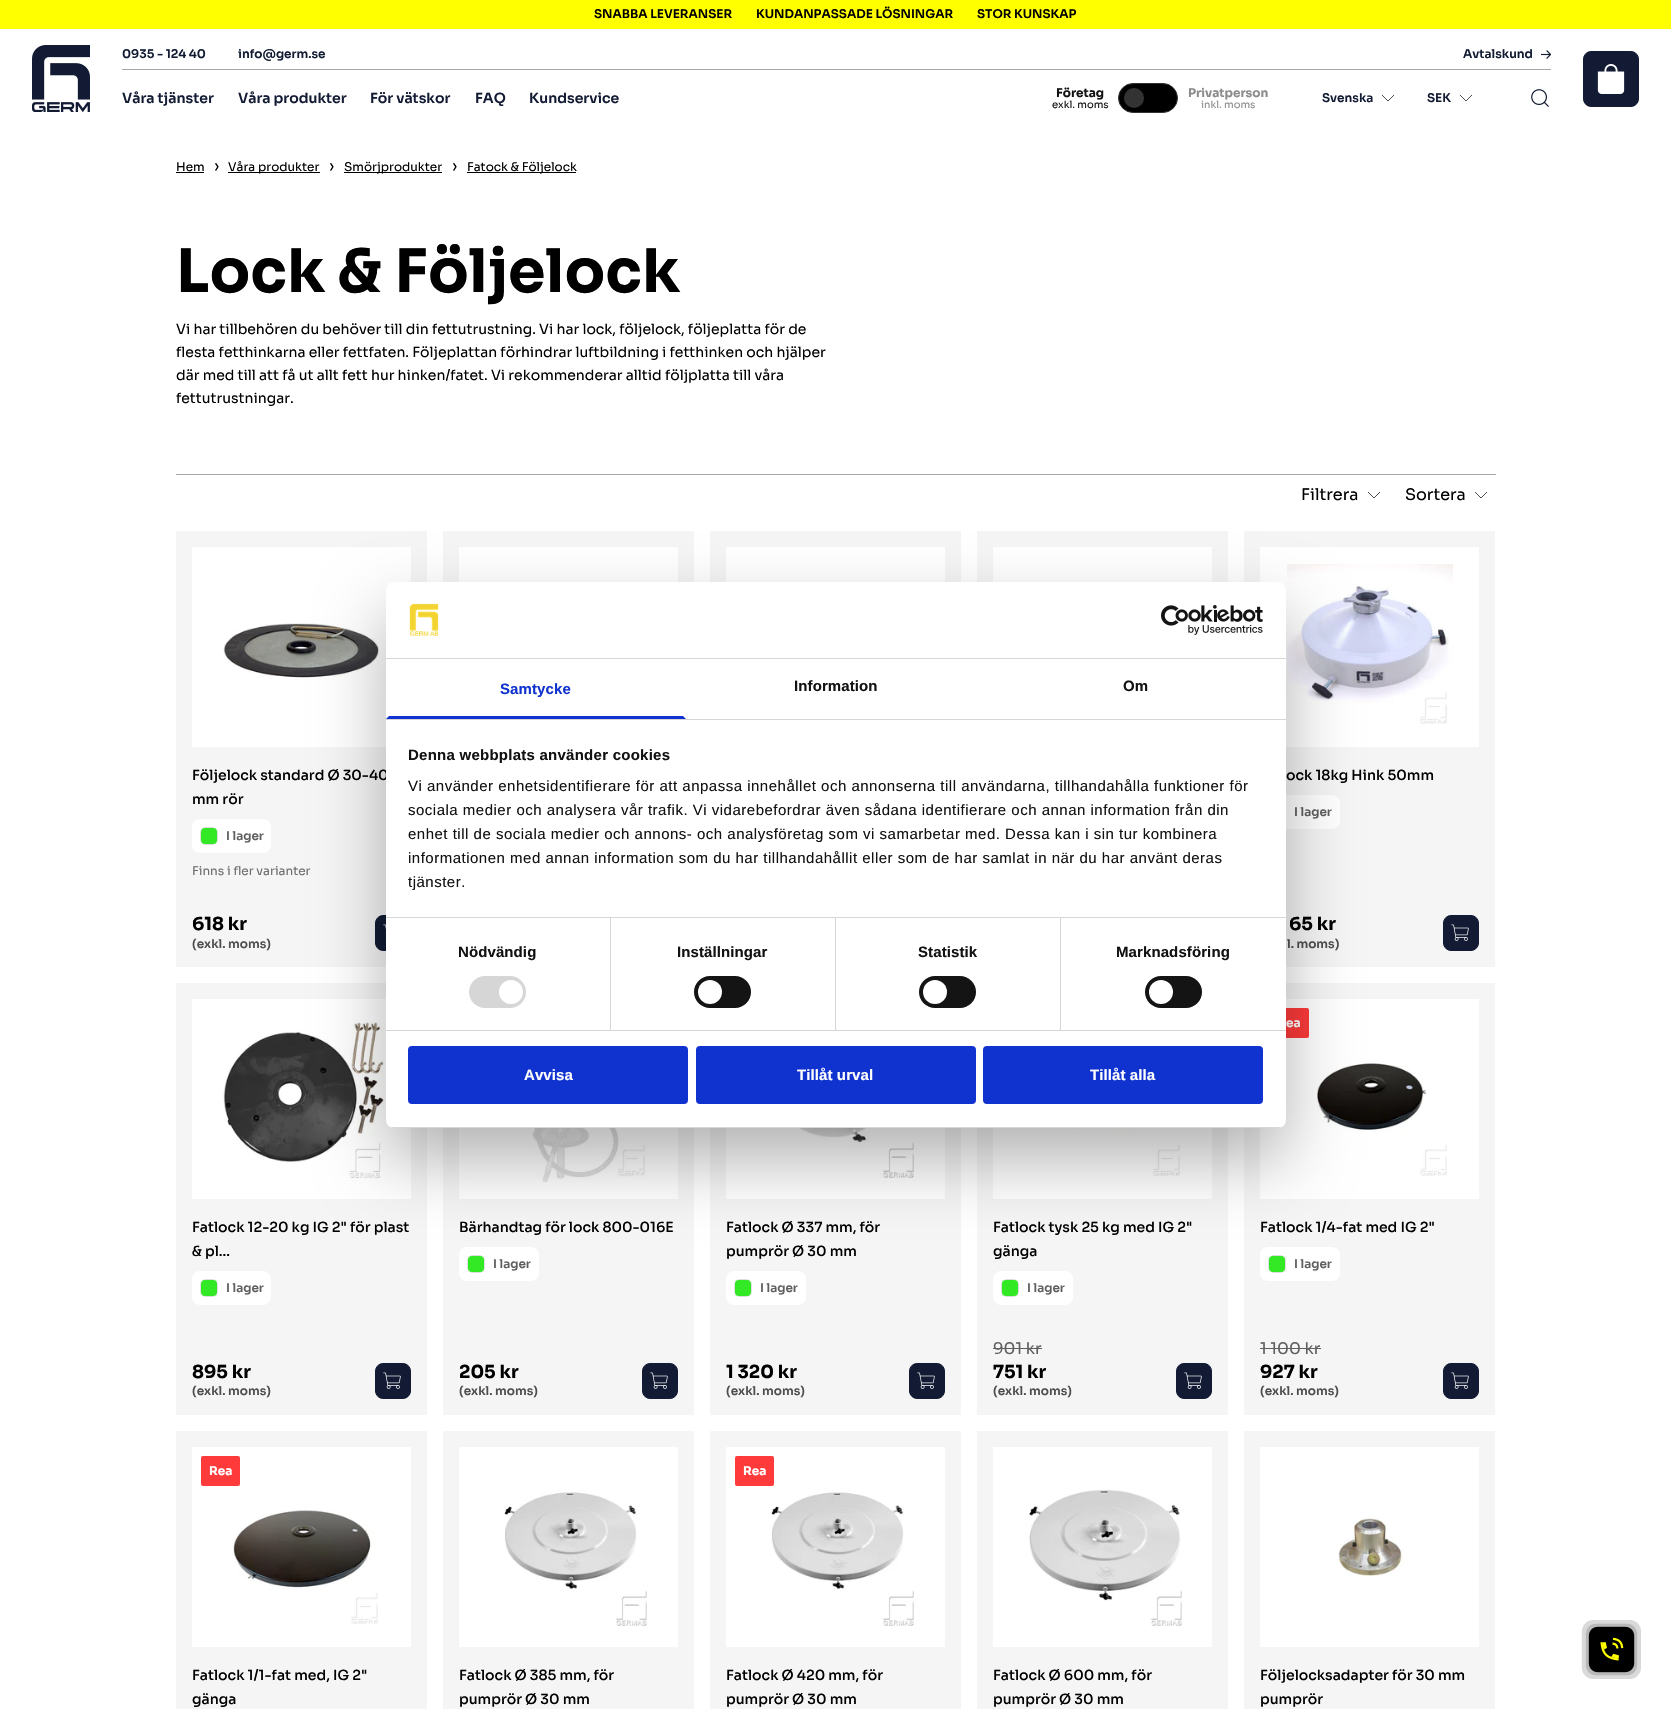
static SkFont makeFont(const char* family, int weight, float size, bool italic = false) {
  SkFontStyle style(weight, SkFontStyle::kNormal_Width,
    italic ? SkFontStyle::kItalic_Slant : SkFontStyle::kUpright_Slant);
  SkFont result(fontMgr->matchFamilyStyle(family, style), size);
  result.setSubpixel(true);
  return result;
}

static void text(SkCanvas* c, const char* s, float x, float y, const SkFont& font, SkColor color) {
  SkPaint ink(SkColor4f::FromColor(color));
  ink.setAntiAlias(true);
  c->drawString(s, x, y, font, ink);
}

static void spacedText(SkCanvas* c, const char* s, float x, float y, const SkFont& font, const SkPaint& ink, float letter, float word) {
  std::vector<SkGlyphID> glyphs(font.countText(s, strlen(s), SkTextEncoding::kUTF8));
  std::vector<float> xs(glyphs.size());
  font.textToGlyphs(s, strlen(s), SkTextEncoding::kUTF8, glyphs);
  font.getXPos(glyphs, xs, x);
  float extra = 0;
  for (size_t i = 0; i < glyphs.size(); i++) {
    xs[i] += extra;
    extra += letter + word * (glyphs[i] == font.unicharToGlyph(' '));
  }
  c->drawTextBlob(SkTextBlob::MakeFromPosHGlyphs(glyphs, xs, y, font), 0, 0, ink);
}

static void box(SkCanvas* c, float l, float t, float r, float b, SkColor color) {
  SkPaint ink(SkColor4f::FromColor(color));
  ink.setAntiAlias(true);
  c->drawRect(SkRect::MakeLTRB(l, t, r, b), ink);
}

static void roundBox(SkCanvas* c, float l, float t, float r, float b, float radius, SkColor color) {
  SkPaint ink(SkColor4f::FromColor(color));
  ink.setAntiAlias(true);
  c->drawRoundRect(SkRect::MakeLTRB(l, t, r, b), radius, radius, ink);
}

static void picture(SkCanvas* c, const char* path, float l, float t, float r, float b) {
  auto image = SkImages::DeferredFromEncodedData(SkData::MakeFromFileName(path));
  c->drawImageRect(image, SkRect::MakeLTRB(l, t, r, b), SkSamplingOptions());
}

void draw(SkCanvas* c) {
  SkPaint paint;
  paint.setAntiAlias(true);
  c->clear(0xffffffff);
  box(c, 0, 0, 1671, 29, 0xffffff00);
  SkFont face1 = makeFont("Sora", 600, 12);
  text(c, "SNABBA LEVERANSER", 594, 18, face1, 0xff000000);
  text(c, "KUNDANPASSADE LÖSNINGAR", 756, 18, face1, 0xff000000);
  text(c, "STOR KUNSKAP", 977, 18, face1, 0xff000000);
  picture(c, "img_01.png", 32, 45, 90, 112);
  text(c, "0935 - 124 40", 122, 58, face1, 0xff121b33);
  text(c, "info@germ.se", 238, 58, face1, 0xff121b33);
  text(c, "Avtalskund", 1463, 58, face1, 0xff121b33);
  picture(c, "img_02.png", 1541, 50, 1551, 59);
  box(c, 122, 69, 1551, 70, 0xffa8a8a8);
  SkFont face2 = makeFont("Sora", 600, 14);
  text(c, "Våra tjänster", 122, 103, face2, 0xff121b33);
  text(c, "Våra produkter", 238, 103, face2, 0xff121b33);
  text(c, "För vätskor", 370, 103, face2, 0xff121b33);
  text(c, "FAQ", 475, 103, face2, 0xff121b33);
  text(c, "Kundservice", 529, 103, face2, 0xff121b33);
  SkFont face3 = makeFont("Sora", 700, 12);
  text(c, "Företag", 1056, 97, face3, 0xff121212);
  SkFont face4 = makeFont("Sora", 400, 10);
  text(c, "exkl. moms", 1052, 108, face4, 0xff121212);
  paint.setColor(0xff000000);
  c->drawRoundRect(SkRect::MakeLTRB(1118.5f, 83.5f, 1177.5f, 112.5f), 14.5f, 14.5f, paint);
  paint.setStyle(SkPaint::kStroke_Style);
  paint.setStrokeWidth(1);
  paint.setColor(0xff333333);
  c->drawRoundRect(SkRect::MakeLTRB(1118.5f, 83.5f, 1177.5f, 112.5f), 14.5f, 14.5f, paint);
  paint.setStyle(SkPaint::kFill_Style);
  c->drawCircle(1134, 98, 10, paint);
  text(c, "Privatperson", 1188, 97, face3, 0xff8c8c8c);
  text(c, "inkl. moms", 1201, 108, face4, 0xff8c8c8c);
  text(c, "Svenska", 1322, 102, face1, 0xff121b33);
  paint.setStyle(SkPaint::kStroke_Style);
  paint.setColor(0xff4e4e4e);
  c->drawPath(SkPathBuilder().moveTo(1394, 95).lineTo(1388, 101).lineTo(1382, 95).detach(), paint);
  text(c, "SEK", 1427, 102, face1, 0xff121b33);
  c->drawPath(SkPathBuilder().moveTo(1472, 95).lineTo(1466, 101).lineTo(1460, 95).detach(), paint);
  picture(c, "img_03.png", 1531, 89, 1549, 107);
  paint.setStyle(SkPaint::kFill_Style);
  paint.setColor(0xff121b33);
  c->drawRoundRect(SkRect::MakeLTRB(1583.5f, 51.5f, 1638.5f, 106.5f), 7.5f, 7.5f, paint);
  paint.setStyle(SkPaint::kStroke_Style);
  c->drawRoundRect(SkRect::MakeLTRB(1583.5f, 51.5f, 1638.5f, 106.5f), 7.5f, 7.5f, paint);
  picture(c, "img_04.png", 1597, 64, 1625, 94);
  SkFont face5 = makeFont("Sora", 400, 12);
  text(c, "Hem", 176, 171, face5, 0xff000000);
  box(c, 176, 172, 204, 173, 0xff000000);
  SkFont face6 = makeFont("Sora", 400, 16);
  text(c, "›", 214, 171, face6, 0xff000000);
  box(c, 228, 172, 320, 173, 0xff000000);
  text(c, "Våra produkter", 228, 171, face5, 0xff000000);
  text(c, "›", 329, 171, face6, 0xff000000);
  box(c, 344, 172, 442, 173, 0xff000000);
  text(c, "Smörjprodukter", 344, 171, face5, 0xff000000);
  text(c, "›", 452, 171, face6, 0xff000000);
  box(c, 467, 172, 576, 173, 0xff000000);
  text(c, "Fatock & Följelock", 467, 171, face5, 0xff000000);
  SkFont face7 = makeFont("Sora", 700, 60);
  text(c, "Lock & Följelock", 176, 292, face7, 0xff000000);
  SkFont face8 = makeFont("Sora", 400, 14);
  text(c, "Vi har tillbehören du behöver till din fettutrustning. Vi har lock, följelock, följeplatta för de", 176, 334, face8, 0xff000000);
  text(c, "flesta fetthinkarna eller fettfaten. Följeplattan förhindrar luftbildning i fetthinken och hjälper", 176, 357, face8, 0xff000000);
  text(c, "där med till att få ut allt fett hur hinken/fatet. Vi rekommenderar alltid följplatta till våra", 176, 380, face8, 0xff000000);
  text(c, "fettutrustningar.", 176, 403, face8, 0xff000000);
  box(c, 176, 474, 1496, 475, 0xffa8a8a8);
  text(c, "Filtrera", 1301, 500, face6, 0xff000000);
  paint.setColor(0xff4e4e4e);
  c->drawPath(SkPathBuilder().moveTo(1380, 492).lineTo(1374, 498).lineTo(1368, 492).detach(), paint);
  text(c, "Sortera", 1405, 500, face6, 0xff000000);
  c->drawPath(SkPathBuilder().moveTo(1487, 492).lineTo(1481, 498).lineTo(1475, 492).detach(), paint);
  box(c, 443, 531, 694, 582, 0xfff5f5f5);
  box(c, 459, 547, 678, 582, 0xffffffff);
  box(c, 710, 531, 961, 582, 0xfff5f5f5);
  box(c, 726, 547, 945, 582, 0xffffffff);
  box(c, 977, 531, 1228, 582, 0xfff5f5f5);
  box(c, 993, 547, 1212, 582, 0xffffffff);
  box(c, 176, 531, 427, 967, 0xfff5f5f5);
  box(c, 192, 547, 411, 747, 0xffffffff);
  picture(c, "img_05.png", 223, 623, 379, 680);
  SkFont face9 = makeFont("Sora", 500, 14);
  text(c, "Följelock standard Ø 30-40", 192, 780, face9, 0xff000000);
  text(c, "mm rör", 192, 804, face9, 0xff000000);
  roundBox(c, 192, 819, 271, 853, 8, 0xffffffff);
  paint.setColor(0xffdcdcdc);
  c->drawRoundRect(SkRect::MakeLTRB(200.5f, 827.5f, 217.5f, 844.5f), 5.5f, 5.5f, paint);
  roundBox(c, 201, 828, 217, 844, 4, 0xff33e825);
  text(c, "I lager", 226, 840, face1, 0xff5f5f5f);
  text(c, "Finns i fler varianter", 192, 875, face5, 0xff6d6d6d);
  SkFont face10 = makeFont("Sora", 700, 18);
  text(c, "618 kr", 192, 930, face10, 0xff000000);
  text(c, "(exkl. moms)", 192, 948, face1, 0xff4e4e4e);
  paint.setStyle(SkPaint::kFill_Style);
  paint.setColor(0xff121b33);
  c->drawRoundRect(SkRect::MakeLTRB(375.5f, 915.5f, 410.5f, 950.5f), 7.5f, 7.5f, paint);
  paint.setStyle(SkPaint::kStroke_Style);
  c->drawRoundRect(SkRect::MakeLTRB(375.5f, 915.5f, 410.5f, 950.5f), 7.5f, 7.5f, paint);
  picture(c, "img_06.png", 383, 924, 386, 929);
  box(c, 1244, 531, 1495, 967, 0xfff5f5f5);
  box(c, 1260, 547, 1479, 747, 0xffffffff);
  picture(c, "img_07.png", 1287, 564, 1453, 724);
  text(c, "ock 18kg Hink 50mm", 1286, 780, face9, 0xff000000);
  roundBox(c, 1260, 795, 1340, 829, 8, 0xffffffff);
  text(c, "I lager", 1294, 816, face1, 0xff5f5f5f);
  text(c, "65 kr", 1289, 930, face10, 0xff000000);
  text(c, "l. moms)", 1287, 948, face1, 0xff4e4e4e);
  paint.setStyle(SkPaint::kFill_Style);
  c->drawRoundRect(SkRect::MakeLTRB(1443.5f, 915.5f, 1478.5f, 950.5f), 7.5f, 7.5f, paint);
  paint.setStyle(SkPaint::kStroke_Style);
  c->drawRoundRect(SkRect::MakeLTRB(1443.5f, 915.5f, 1478.5f, 950.5f), 7.5f, 7.5f, paint);
  picture(c, "img_08.png", 1451, 924, 1469, 941);
  box(c, 176, 983, 427, 1415, 0xfff5f5f5);
  box(c, 192, 999, 411, 1199, 0xffffffff);
  picture(c, "img_09.png", 222, 1022, 384, 1179);
  text(c, "Fatlock 12-20 kg IG 2\" för plast", 192, 1232, face9, 0xff000000);
  text(c, "& pl...", 192, 1256, face9, 0xff000000);
  roundBox(c, 192, 1271, 271, 1305, 8, 0xffffffff);
  paint.setColor(0xffdcdcdc);
  c->drawRoundRect(SkRect::MakeLTRB(200.5f, 1279.5f, 217.5f, 1296.5f), 5.5f, 5.5f, paint);
  roundBox(c, 201, 1280, 217, 1296, 4, 0xff33e825);
  text(c, "I lager", 226, 1292, face1, 0xff5f5f5f);
  text(c, "895 kr", 192, 1378, face10, 0xff000000);
  text(c, "(exkl. moms)", 192, 1395, face1, 0xff4e4e4e);
  paint.setStyle(SkPaint::kFill_Style);
  paint.setColor(0xff121b33);
  c->drawRoundRect(SkRect::MakeLTRB(375.5f, 1363.5f, 410.5f, 1398.5f), 7.5f, 7.5f, paint);
  paint.setStyle(SkPaint::kStroke_Style);
  c->drawRoundRect(SkRect::MakeLTRB(375.5f, 1363.5f, 410.5f, 1398.5f), 7.5f, 7.5f, paint);
  picture(c, "img_08.png", 383, 1372, 401, 1389);
  box(c, 443, 1128, 694, 1415, 0xfff5f5f5);
  box(c, 459, 1128, 678, 1199, 0xffffffff);
  picture(c, "img_10.png", 527, 1128, 645, 1182);
  text(c, "Bärhandtag för lock 800-016E", 459, 1232, face9, 0xff000000);
  roundBox(c, 459, 1247, 539, 1281, 8, 0xffffffff);
  paint.setColor(0xffdcdcdc);
  c->drawRoundRect(SkRect::MakeLTRB(467.5f, 1255.5f, 484.5f, 1272.5f), 5.5f, 5.5f, paint);
  roundBox(c, 468, 1256, 484, 1272, 4, 0xff33e825);
  text(c, "I lager", 493, 1268, face1, 0xff5f5f5f);
  text(c, "205 kr", 459, 1378, face10, 0xff000000);
  text(c, "(exkl. moms)", 459, 1395, face1, 0xff4e4e4e);
  paint.setStyle(SkPaint::kFill_Style);
  paint.setColor(0xff121b33);
  c->drawRoundRect(SkRect::MakeLTRB(642.5f, 1363.5f, 677.5f, 1398.5f), 7.5f, 7.5f, paint);
  paint.setStyle(SkPaint::kStroke_Style);
  c->drawRoundRect(SkRect::MakeLTRB(642.5f, 1363.5f, 677.5f, 1398.5f), 7.5f, 7.5f, paint);
  picture(c, "img_08.png", 650, 1372, 668, 1389);
  box(c, 710, 1128, 961, 1415, 0xfff5f5f5);
  box(c, 726, 1128, 945, 1199, 0xffffffff);
  picture(c, "img_11.png", 772, 1128, 914, 1178);
  text(c, "Fatlock Ø 337 mm, för", 726, 1232, face9, 0xff000000);
  text(c, "pumprör Ø 30 mm", 726, 1256, face9, 0xff000000);
  roundBox(c, 726, 1271, 806, 1305, 8, 0xffffffff);
  paint.setColor(0xffdcdcdc);
  c->drawRoundRect(SkRect::MakeLTRB(734.5f, 1279.5f, 751.5f, 1296.5f), 5.5f, 5.5f, paint);
  roundBox(c, 735, 1280, 751, 1296, 4, 0xff33e825);
  text(c, "I lager", 760, 1292, face1, 0xff5f5f5f);
  text(c, "1 320 kr", 726, 1378, face10, 0xff000000);
  text(c, "(exkl. moms)", 726, 1395, face1, 0xff4e4e4e);
  paint.setStyle(SkPaint::kFill_Style);
  paint.setColor(0xff121b33);
  c->drawRoundRect(SkRect::MakeLTRB(909.5f, 1363.5f, 944.5f, 1398.5f), 7.5f, 7.5f, paint);
  paint.setStyle(SkPaint::kStroke_Style);
  c->drawRoundRect(SkRect::MakeLTRB(909.5f, 1363.5f, 944.5f, 1398.5f), 7.5f, 7.5f, paint);
  picture(c, "img_08.png", 917, 1372, 935, 1389);
  box(c, 977, 1128, 1228, 1415, 0xfff5f5f5);
  box(c, 993, 1128, 1212, 1199, 0xffffffff);
  picture(c, "img_12.png", 1053, 1128, 1180, 1176);
  text(c, "Fatlock tysk 25 kg med IG 2\"", 993, 1232, face9, 0xff000000);
  text(c, "gänga", 993, 1256, face9, 0xff000000);
  roundBox(c, 993, 1271, 1073, 1305, 8, 0xffffffff);
  paint.setColor(0xffdcdcdc);
  c->drawRoundRect(SkRect::MakeLTRB(1001.5f, 1279.5f, 1018.5f, 1296.5f), 5.5f, 5.5f, paint);
  roundBox(c, 1002, 1280, 1018, 1296, 4, 0xff33e825);
  text(c, "I lager", 1027, 1292, face1, 0xff5f5f5f);
  text(c, "901 kr", 993, 1354, face6, 0xff5f5f5f);
  box(c, 993, 1348, 1042, 1349, 0xff5f5f5f);
  text(c, "751 kr", 993, 1378, face10, 0xff000000);
  text(c, "(exkl. moms)", 993, 1395, face1, 0xff4e4e4e);
  paint.setStyle(SkPaint::kFill_Style);
  paint.setColor(0xff121b33);
  c->drawRoundRect(SkRect::MakeLTRB(1176.5f, 1363.5f, 1211.5f, 1398.5f), 7.5f, 7.5f, paint);
  paint.setStyle(SkPaint::kStroke_Style);
  c->drawRoundRect(SkRect::MakeLTRB(1176.5f, 1363.5f, 1211.5f, 1398.5f), 7.5f, 7.5f, paint);
  picture(c, "img_08.png", 1184, 1372, 1202, 1389);
  box(c, 1244, 983, 1495, 1415, 0xfff5f5f5);
  box(c, 1260, 999, 1479, 1199, 0xffffffff);
  roundBox(c, 1269, 1008, 1309, 1038, 2, 0xffff3a3a);
  text(c, "ea", 1286, 1027, face3, 0xffffffff);
  picture(c, "img_13.png", 1317, 1063, 1447, 1176);
  text(c, "Fatlock 1/4-fat med IG 2\"", 1260, 1232, face9, 0xff000000);
  roundBox(c, 1260, 1247, 1340, 1281, 8, 0xffffffff);
  paint.setColor(0xffdcdcdc);
  c->drawRoundRect(SkRect::MakeLTRB(1268.5f, 1255.5f, 1285.5f, 1272.5f), 5.5f, 5.5f, paint);
  roundBox(c, 1269, 1256, 1285, 1272, 4, 0xff33e825);
  text(c, "I lager", 1294, 1268, face1, 0xff5f5f5f);
  text(c, "1 100 kr", 1260, 1354, face6, 0xff5f5f5f);
  box(c, 1260, 1348, 1321, 1349, 0xff5f5f5f);
  text(c, "927 kr", 1260, 1378, face10, 0xff000000);
  text(c, "(exkl. moms)", 1260, 1395, face1, 0xff4e4e4e);
  paint.setStyle(SkPaint::kFill_Style);
  paint.setColor(0xff121b33);
  c->drawRoundRect(SkRect::MakeLTRB(1443.5f, 1363.5f, 1478.5f, 1398.5f), 7.5f, 7.5f, paint);
  paint.setStyle(SkPaint::kStroke_Style);
  c->drawRoundRect(SkRect::MakeLTRB(1443.5f, 1363.5f, 1478.5f, 1398.5f), 7.5f, 7.5f, paint);
  picture(c, "img_08.png", 1451, 1372, 1469, 1389);
  box(c, 176, 1431, 427, 1709, 0xfff5f5f5);
  box(c, 192, 1447, 411, 1647, 0xffffffff);
  roundBox(c, 201, 1456, 240, 1486, 2, 0xffff3a3a);
  text(c, "Rea", 209, 1475, face3, 0xffffffff);
  picture(c, "img_14.png", 232, 1510, 378, 1624);
  text(c, "Fatlock 1/1-fat med, IG 2\"", 192, 1680, face9, 0xff000000);
  text(c, "gänga", 192, 1704, face9, 0xff000000);
  box(c, 443, 1431, 694, 1709, 0xfff5f5f5);
  box(c, 459, 1447, 678, 1647, 0xffffffff);
  picture(c, "img_15.png", 504, 1492, 647, 1626);
  text(c, "Fatlock Ø 385 mm, för", 459, 1680, face9, 0xff000000);
  text(c, "pumprör Ø 30 mm", 459, 1704, face9, 0xff000000);
  box(c, 710, 1431, 961, 1709, 0xfff5f5f5);
  box(c, 726, 1447, 945, 1647, 0xffffffff);
  roundBox(c, 735, 1456, 774, 1486, 2, 0xffff3a3a);
  text(c, "Rea", 743, 1475, face3, 0xffffffff);
  picture(c, "img_15.png", 771, 1492, 914, 1626);
  text(c, "Fatlock Ø 420 mm, för", 726, 1680, face9, 0xff000000);
  text(c, "pumprör Ø 30 mm", 726, 1704, face9, 0xff000000);
  box(c, 977, 1431, 1228, 1709, 0xfff5f5f5);
  box(c, 993, 1447, 1212, 1647, 0xffffffff);
  picture(c, "img_16.png", 1029, 1489, 1182, 1626);
  text(c, "Fatlock Ø 600 mm, för", 993, 1680, face9, 0xff000000);
  text(c, "pumprör Ø 30 mm", 993, 1704, face9, 0xff000000);
  box(c, 1244, 1431, 1495, 1709, 0xfff5f5f5);
  box(c, 1260, 1447, 1479, 1647, 0xffffffff);
  picture(c, "img_17.png", 1337, 1517, 1405, 1577);
  text(c, "Följelocksadapter för 30 mm", 1260, 1680, face9, 0xff000000);
  text(c, "pumprör", 1260, 1704, face9, 0xff000000);
  paint.setStyle(SkPaint::kFill_Style);
  paint.setColor(0x4d000000);
  paint.setMaskFilter(SkMaskFilter::MakeBlur(kNormal_SkBlurStyle, 34));
  c->drawRoundRect(SkRect::MakeLTRB(386, 614, 1286, 1160), 8, 8, paint);
  paint.setMaskFilter(nullptr);
  roundBox(c, 386, 582, 1286, 1128, 8, 0xffffffff);
  box(c, 386, 658, 1286, 659, 0xffd6d6d6);
  picture(c, "img_18.png", 409, 603, 439, 636);
  picture(c, "img_19.png", 1161, 605, 1263, 635);
  box(c, 386, 719, 1286, 720, 0xffd6d6d6);
  paint.setColor(0xff1032cf);
  c->drawPath(SkPathBuilder().moveTo(686, 719).lineTo(386, 719).lineTo(389, 716).lineTo(683, 716).close().detach(), paint);
  SkFont face11 = makeFont("Liberation Sans", 700, 15);
  spacedText(c, "Samtycke", 500, 694, face11, paint, 0.1f, 0);
  paint.setColor(0xff121212);
  spacedText(c, "Information", 794, 691, face11, paint, 0.1f, 0);
  spacedText(c, "Om", 1123, 691, face11, paint, 0.1f, 0);
  box(c, 386, 917, 1286, 918, 0xffd6d6d6);
  spacedText(c, "Denna webbplats använder cookies", 408, 760, face11, paint, 0.25f, 0);
  SkFont face12 = makeFont("Liberation Sans", 400, 15);
  spacedText(c, "Vi använder enhetsidentifierare för att anpassa innehållet och annonserna till användarna, tillhandahålla funktioner för", 408, 791, face12, paint, 0.5f, 0);
  spacedText(c, "sociala medier och analysera vår trafik. Vi vidarebefordrar även sådana identifierare och annan information från din", 408, 815, face12, paint, 0.5f, 0);
  spacedText(c, "enhet till de sociala medier och annons- och analysföretag som vi samarbetar med. Dessa kan i sin tur kombinera", 408, 839, face12, paint, 0.5f, 0);
  spacedText(c, "informationen med annan information som du har tillhandahållit eller som de har samlat in när du har använt deras", 408, 863, face12, paint, 0.5f, 0);
  spacedText(c, "tjänster.", 408, 887, face12, paint, 0.5f, 0);
  box(c, 386, 1030, 1286, 1031, 0xffd6d6d6);
  box(c, 610, 918, 611, 1030, 0xffd6d6d6);
  spacedText(c, "Nödvändig", 458, 957, face11, paint, 0.1f, 0);
  roundBox(c, 469, 976, 526, 1008, 16, 0xffd6d6d6);
  paint.setColor(0xffffffff);
  c->drawCircle(511, 992, 12, paint);
  box(c, 835, 918, 836, 1030, 0xffd6d6d6);
  paint.setColor(0xff121212);
  spacedText(c, "Inställningar", 677, 957, face11, paint, 0.1f, 0);
  roundBox(c, 694, 976, 751, 1008, 16, 0xff141414);
  paint.setColor(0xffffffff);
  c->drawCircle(710, 992, 12, paint);
  box(c, 1060, 918, 1061, 1030, 0xffd6d6d6);
  paint.setColor(0xff121212);
  spacedText(c, "Statistik", 918, 957, face11, paint, 0.1f, 0);
  roundBox(c, 919, 976, 976, 1008, 16, 0xff141414);
  paint.setColor(0xffffffff);
  c->drawCircle(935, 992, 12, paint);
  paint.setColor(0xff121212);
  spacedText(c, "Marknadsföring", 1116, 957, face11, paint, 0.1f, 0);
  roundBox(c, 1145, 976, 1202, 1008, 16, 0xff141414);
  paint.setColor(0xffffffff);
  c->drawCircle(1161, 992, 12, paint);
  c->save();
  c->clipPath(SkPathBuilder().moveTo(394, 582).lineTo(1278, 582).cubicTo(1282.5f, 582, 1286, 585.5f, 1286, 590).lineTo(1286, 1120).cubicTo(1286, 1124.5f, 1282.5f, 1128, 1278, 1128).lineTo(394, 1128).cubicTo(389.5f, 1128, 386, 1124.5f, 386, 1120).lineTo(386, 590).cubicTo(386, 585.5f, 389.5f, 582, 394, 582).close().detach(), true);
  box(c, 386, 1127, 1286, 1128, 0xffd6d6d6);
  c->restore();
  paint.setColor(0xff1032cf);
  c->drawRoundRect(SkRect::MakeLTRB(409, 1047, 687, 1103), 3, 3, paint);
  paint.setStyle(SkPaint::kStroke_Style);
  paint.setStrokeWidth(2);
  c->drawRoundRect(SkRect::MakeLTRB(409, 1047, 687, 1103), 3, 3, paint);
  paint.setStyle(SkPaint::kFill_Style);
  paint.setColor(0xffffffff);
  spacedText(c, "Avvisa", 524, 1080, face11, paint, 0.1f, 0);
  paint.setColor(0xff1032cf);
  c->drawRoundRect(SkRect::MakeLTRB(697, 1047, 975, 1103), 3, 3, paint);
  paint.setStyle(SkPaint::kStroke_Style);
  c->drawRoundRect(SkRect::MakeLTRB(697, 1047, 975, 1103), 3, 3, paint);
  paint.setStyle(SkPaint::kFill_Style);
  paint.setColor(0xffffffff);
  spacedText(c, "Tillåt urval", 797, 1080, face11, paint, 0.1f, 0);
  paint.setColor(0xff1032cf);
  c->drawRoundRect(SkRect::MakeLTRB(984, 1047, 1262, 1103), 3, 3, paint);
  paint.setStyle(SkPaint::kStroke_Style);
  c->drawRoundRect(SkRect::MakeLTRB(984, 1047, 1262, 1103), 3, 3, paint);
  paint.setStyle(SkPaint::kFill_Style);
  paint.setColor(0xffffffff);
  spacedText(c, "Tillåt alla", 1090, 1080, face11, paint, 0.1f, 0);
  picture(c, "img_20.png", 1581, 1620, 1641, 1679);
}
